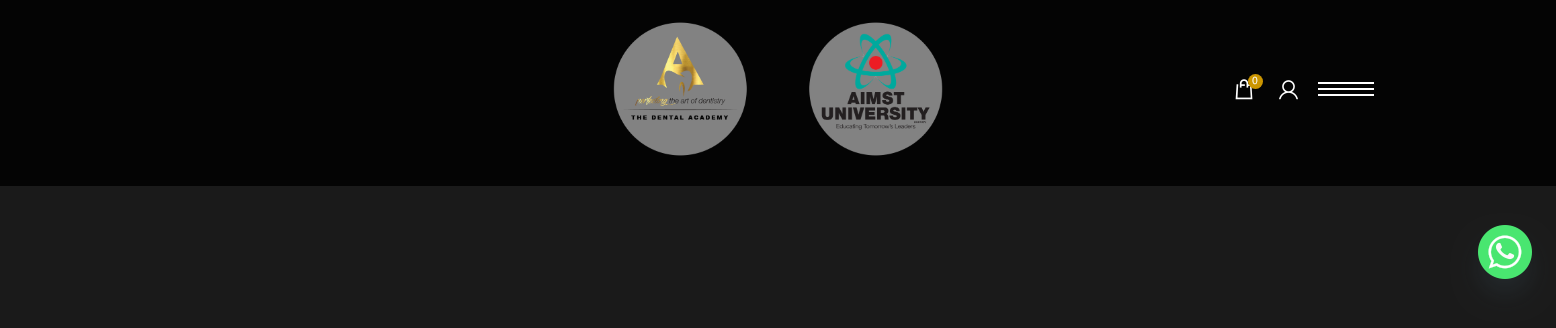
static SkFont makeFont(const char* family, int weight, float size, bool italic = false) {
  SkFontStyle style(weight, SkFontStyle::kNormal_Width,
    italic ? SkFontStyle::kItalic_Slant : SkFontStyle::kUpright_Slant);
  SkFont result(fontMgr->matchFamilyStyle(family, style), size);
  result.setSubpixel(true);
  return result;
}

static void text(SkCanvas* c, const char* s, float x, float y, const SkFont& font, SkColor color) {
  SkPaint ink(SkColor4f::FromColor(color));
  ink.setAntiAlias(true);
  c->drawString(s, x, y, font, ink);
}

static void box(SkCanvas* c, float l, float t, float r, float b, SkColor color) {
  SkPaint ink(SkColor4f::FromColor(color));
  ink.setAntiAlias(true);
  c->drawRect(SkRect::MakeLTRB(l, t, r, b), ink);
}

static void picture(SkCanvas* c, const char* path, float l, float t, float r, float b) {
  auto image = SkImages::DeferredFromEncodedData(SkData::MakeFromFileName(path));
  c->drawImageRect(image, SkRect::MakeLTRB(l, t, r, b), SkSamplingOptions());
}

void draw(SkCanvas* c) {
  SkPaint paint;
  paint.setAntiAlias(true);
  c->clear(0xff1a1a1a);
  box(c, 0, 0, 1556, 186, 0xff040404);
  picture(c, "img_01.png", 613, 22, 943, 156);
  picture(c, "img_02.png", 1235, 79, 1253, 100);
  paint.setColor(0xffcb9500);
  c->drawCircle(1255.5f, 81.5f, 7.5f, paint);
  SkFont face1 = makeFont("Avenir Next", 400, 10);
  text(c, "0", 1252, 84, face1, 0xffffffff);
  picture(c, "img_03.png", 1279, 80, 1298, 100);
  box(c, 1318, 88, 1374, 90, 0xffffffff);
  box(c, 1318, 82, 1374, 84, 0xffffffff);
  box(c, 1318, 94, 1374, 96, 0xffffffff);
  paint.setColor(0x2949687e);
  paint.setMaskFilter(SkMaskFilter::MakeBlur(kNormal_SkBlurStyle, 12));
  c->drawRoundRect(SkRect::MakeLTRB(1478, 241, 1532, 295), 27, 27, paint);
  paint.setMaskFilter(nullptr);
  picture(c, "img_04.png", 1478, 225, 1532, 279);
}
